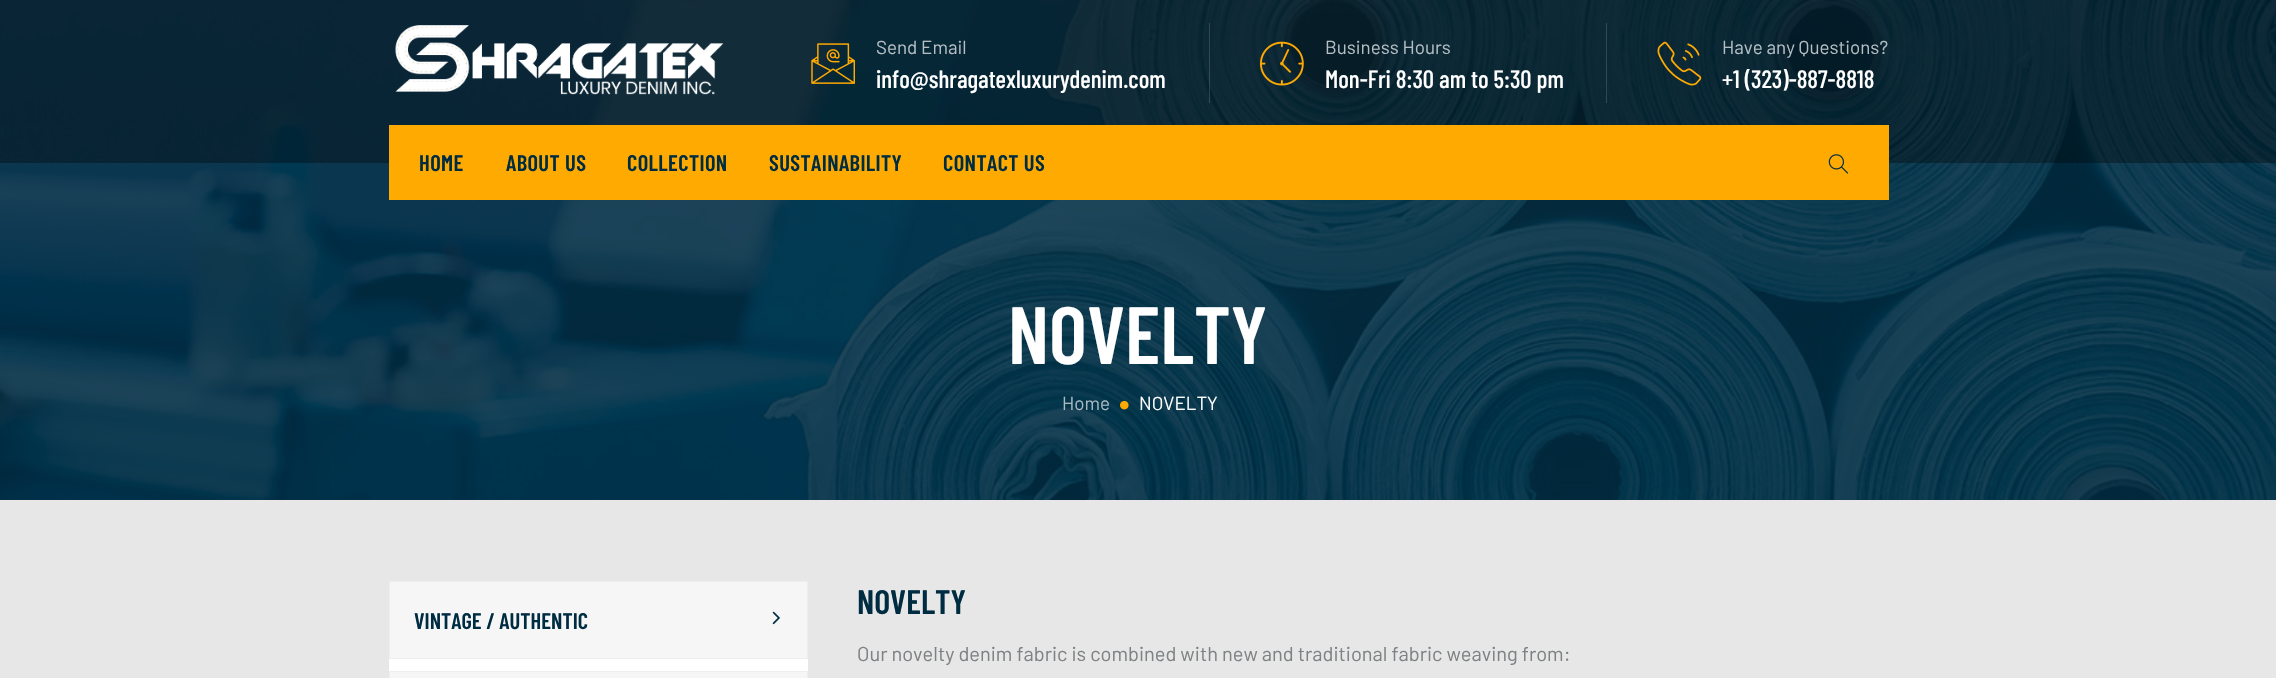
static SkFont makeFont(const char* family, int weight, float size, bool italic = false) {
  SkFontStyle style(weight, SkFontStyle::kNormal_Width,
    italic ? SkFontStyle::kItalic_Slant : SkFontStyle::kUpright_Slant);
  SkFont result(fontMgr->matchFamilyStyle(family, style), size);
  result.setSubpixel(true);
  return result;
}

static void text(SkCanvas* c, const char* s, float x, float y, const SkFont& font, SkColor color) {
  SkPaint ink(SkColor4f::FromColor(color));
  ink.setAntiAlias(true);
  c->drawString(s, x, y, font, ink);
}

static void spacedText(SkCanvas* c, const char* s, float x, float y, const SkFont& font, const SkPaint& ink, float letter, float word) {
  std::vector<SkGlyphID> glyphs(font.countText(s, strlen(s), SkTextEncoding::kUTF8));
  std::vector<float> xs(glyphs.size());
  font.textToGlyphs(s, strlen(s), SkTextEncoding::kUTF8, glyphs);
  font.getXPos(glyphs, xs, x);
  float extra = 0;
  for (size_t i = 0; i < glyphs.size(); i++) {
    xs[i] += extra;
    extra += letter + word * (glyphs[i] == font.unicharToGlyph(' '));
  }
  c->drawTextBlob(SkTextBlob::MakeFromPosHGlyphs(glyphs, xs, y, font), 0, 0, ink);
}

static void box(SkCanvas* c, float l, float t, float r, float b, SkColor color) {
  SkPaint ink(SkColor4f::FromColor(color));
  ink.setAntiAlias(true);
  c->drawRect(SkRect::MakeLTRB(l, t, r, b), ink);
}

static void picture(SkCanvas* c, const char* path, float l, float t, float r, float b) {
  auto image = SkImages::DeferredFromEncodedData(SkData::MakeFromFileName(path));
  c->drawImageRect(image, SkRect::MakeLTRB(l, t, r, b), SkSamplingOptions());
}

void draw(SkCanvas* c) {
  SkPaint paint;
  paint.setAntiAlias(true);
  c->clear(0xffe7e7e7);
  picture(c, "img_06.png", 0, 0, 2276, 500);
  box(c, 0, 0, 2276, 163, 0x57000000);
  picture(c, "img_01.png", 395, 25, 724, 95);
  picture(c, "img_02.png", 811, 43, 855, 84);
  SkFont face1 = makeFont("Barlow", 400, 18.75f);
  text(c, "Send Email", 876, 54, face1, 0xffb4bec3);
  SkFont face2 = makeFont("Barlow Condensed", 500, 25);
  text(c, "info@shragatexluxurydenim.com", 876, 88, face2, 0xffffffff);
  box(c, 1209, 23, 1210, 103, 0x26ffffff);
  picture(c, "img_03.png", 1260, 41, 1304, 86);
  text(c, "Business Hours", 1325, 54, face1, 0xffb4bec3);
  text(c, "Mon-Fri 8:30 am to 5:30 pm", 1325, 88, face2, 0xffffffff);
  box(c, 1606, 23, 1607, 103, 0x26ffffff);
  picture(c, "img_04.png", 1657, 41, 1702, 86);
  text(c, "Have any Questions?", 1722, 54, face1, 0xffb4bec3);
  text(c, "+1 (323)-887-8818", 1722, 88, face2, 0xffffffff);
  box(c, 389, 125, 1889, 200, 0xffffaa01);
  SkFont face3 = makeFont("Barlow Condensed", 600, 22.5f);
  paint.setColor(0xff002c42);
  spacedText(c, "HOME", 419, 171, face3, paint, 0.4f, 0);
  spacedText(c, "ABOUT US", 506, 171, face3, paint, 0.4f, 0);
  spacedText(c, "COLLECTION", 627, 171, face3, paint, 0.4f, 0);
  spacedText(c, "SUSTAINABILITY", 769, 171, face3, paint, 0.4f, 0);
  spacedText(c, "CONTACT US", 943, 171, face3, paint, 0.4f, 0);
  picture(c, "img_05.png", 1828, 154, 1849, 174);
  SkFont face4 = makeFont("Barlow Condensed", 600, 81);
  text(c, "NOVELTY", 1008, 364, face4, 0xffffffff);
  text(c, "Home", 1062, 410, face1, 0xffa8b9c0);
  picture(c, "img_07.png", 1120, 400, 1129, 410);
  text(c, "NOVELTY", 1139, 410, face1, 0xffffffff);
  box(c, 389, 659, 808, 671, 0xffffffff);
  paint.setColor(0xfff6f6f6);
  c->drawRect(SkRect::MakeLTRB(389.5f, 581.5f, 807.5f, 658.5f), paint);
  paint.setStyle(SkPaint::kStroke_Style);
  paint.setStrokeWidth(1);
  paint.setColor(0xffeeeeee);
  c->drawRect(SkRect::MakeLTRB(389.5f, 581.5f, 807.5f, 658.5f), paint);
  text(c, "VINTAGE / AUTHENTIC", 414, 629, face3, 0xff002c42);
  picture(c, "img_08.png", 772, 611, 780, 625);
  paint.setStyle(SkPaint::kFill_Style);
  paint.setColor(0xfff6f6f6);
  c->drawRect(SkRect::MakeLTRB(389.5f, 671.5f, 807.5f, 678.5f), paint);
  paint.setStyle(SkPaint::kStroke_Style);
  paint.setColor(0xffeeeeee);
  c->drawRect(SkRect::MakeLTRB(389.5f, 671.5f, 807.5f, 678.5f), paint);
  SkFont face5 = makeFont("Barlow Condensed", 600, 34);
  text(c, "NOVELTY", 857, 614, face5, 0xff002c42);
  SkFont face6 = makeFont("Barlow", 400, 20);
  text(c, "Our novelty denim fabric is combined with new and traditional fabric weaving from:", 857, 661, face6, 0xff7f8284);
}
